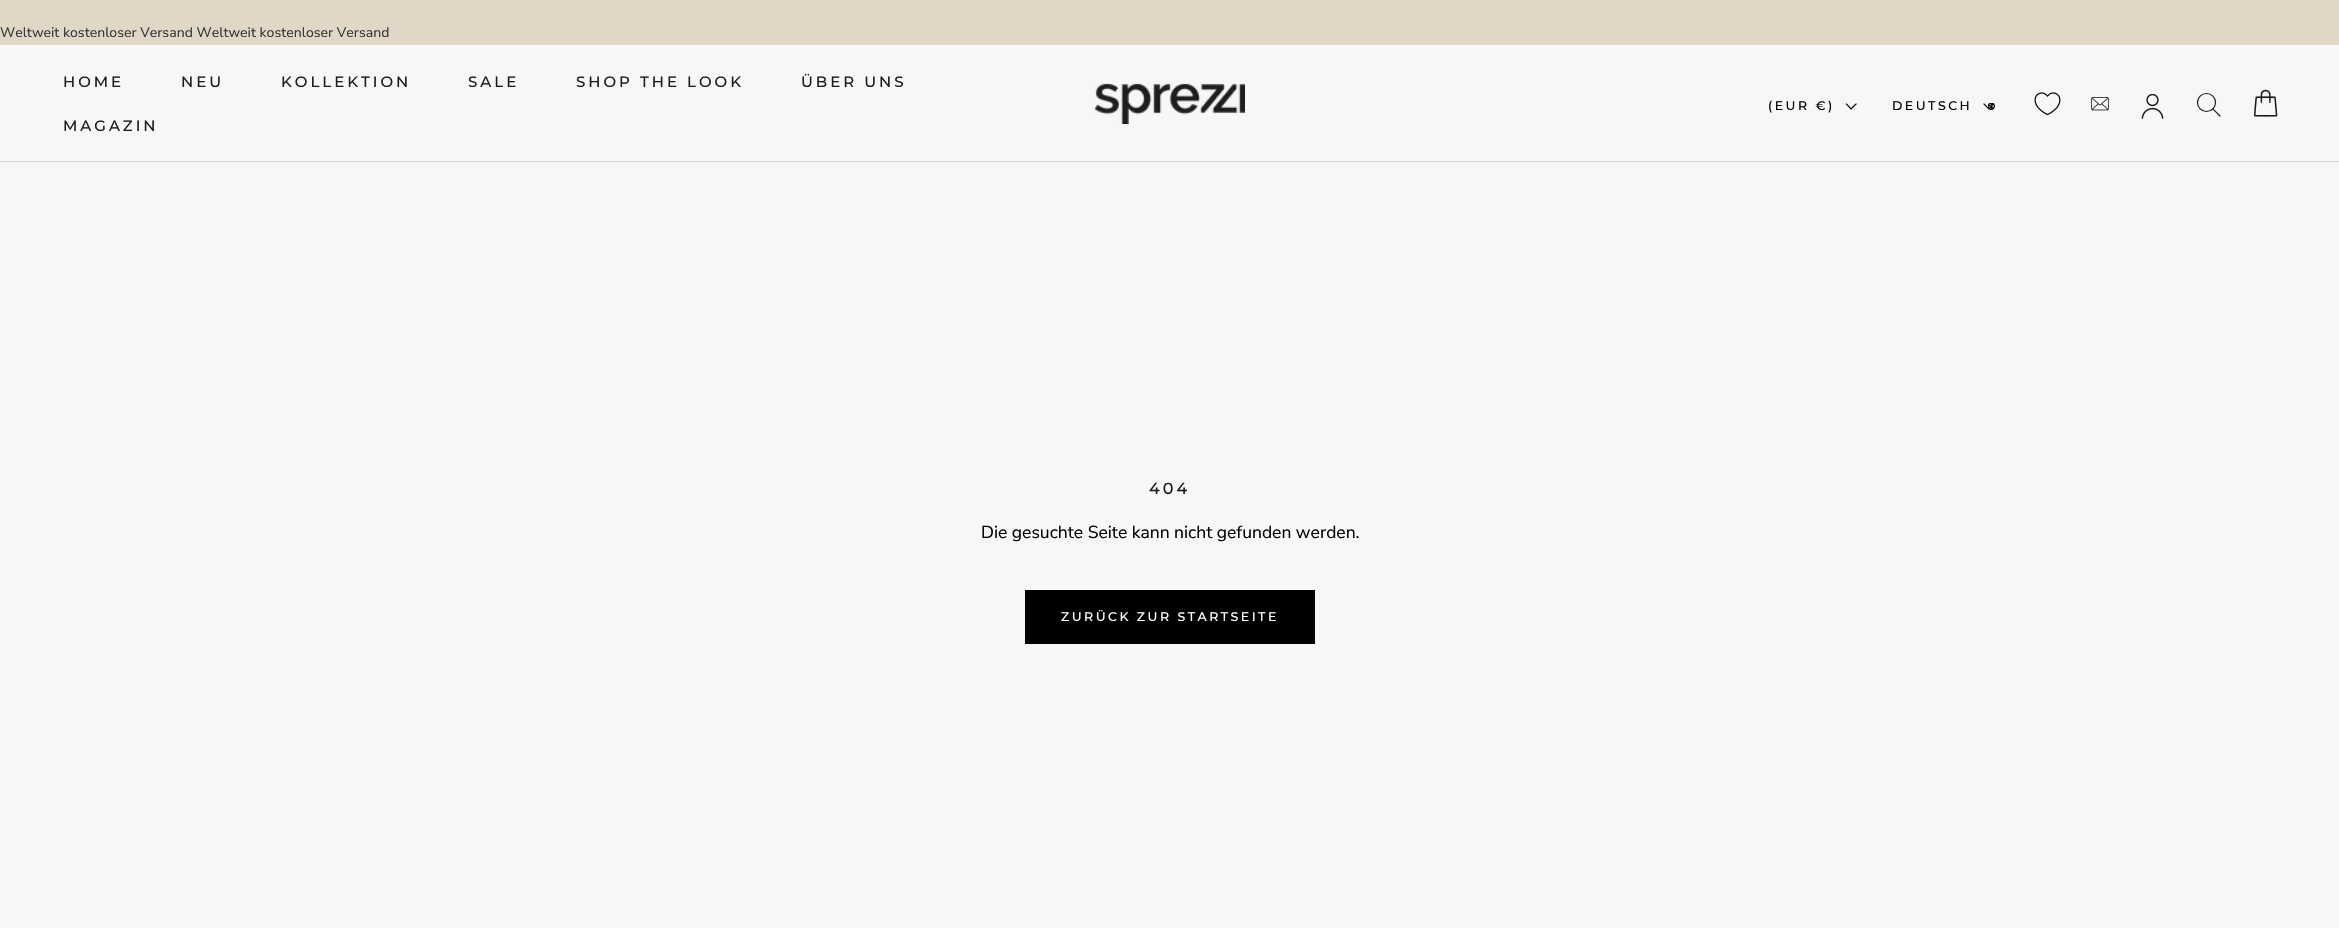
static SkFont makeFont(const char* family, int weight, float size, bool italic = false) {
  SkFontStyle style(weight, SkFontStyle::kNormal_Width,
    italic ? SkFontStyle::kItalic_Slant : SkFontStyle::kUpright_Slant);
  SkFont result(fontMgr->matchFamilyStyle(family, style), size);
  result.setSubpixel(true);
  return result;
}

static void text(SkCanvas* c, const char* s, float x, float y, const SkFont& font, SkColor color) {
  SkPaint ink(SkColor4f::FromColor(color));
  ink.setAntiAlias(true);
  c->drawString(s, x, y, font, ink);
}

static void spacedText(SkCanvas* c, const char* s, float x, float y, const SkFont& font, const SkPaint& ink, float letter, float word) {
  std::vector<SkGlyphID> glyphs(font.countText(s, strlen(s), SkTextEncoding::kUTF8));
  std::vector<float> xs(glyphs.size());
  font.textToGlyphs(s, strlen(s), SkTextEncoding::kUTF8, glyphs);
  font.getXPos(glyphs, xs, x);
  float extra = 0;
  for (size_t i = 0; i < glyphs.size(); i++) {
    xs[i] += extra;
    extra += letter + word * (glyphs[i] == font.unicharToGlyph(' '));
  }
  c->drawTextBlob(SkTextBlob::MakeFromPosHGlyphs(glyphs, xs, y, font), 0, 0, ink);
}

static void box(SkCanvas* c, float l, float t, float r, float b, SkColor color) {
  SkPaint ink(SkColor4f::FromColor(color));
  ink.setAntiAlias(true);
  c->drawRect(SkRect::MakeLTRB(l, t, r, b), ink);
}

static void picture(SkCanvas* c, const char* path, float l, float t, float r, float b) {
  auto image = SkImages::DeferredFromEncodedData(SkData::MakeFromFileName(path));
  c->drawImageRect(image, SkRect::MakeLTRB(l, t, r, b), SkSamplingOptions());
}

void draw(SkCanvas* c) {
  SkPaint paint;
  paint.setAntiAlias(true);
  c->clear(0xfff7f7f7);
  box(c, 0, 0, 2339, 45, 0xffe1d7c7);
  SkFont face1 = makeFont("Nunito Sans", 400, 13.75f);
  text(c, "Weltweit kostenloser Versand Weltweit kostenloser Versand", 0, 37, face1, 0xff363636);
  box(c, 0, 161, 2339, 162, 0xffd6d6d6);
  SkFont face2 = makeFont("Montserrat", 500, 15);
  paint.setColor(0xff1c1b1b);
  spacedText(c, "HOME", 63, 87, face2, paint, 3, 0);
  spacedText(c, "NEU", 181, 87, face2, paint, 3, 0);
  spacedText(c, "KOLLEKTION", 281, 87, face2, paint, 3, 0);
  spacedText(c, "SALE", 468, 87, face2, paint, 3, 0);
  spacedText(c, "SHOP THE LOOK", 576, 87, face2, paint, 3, 0);
  spacedText(c, "ÜBER UNS", 801, 87, face2, paint, 3, 0);
  spacedText(c, "MAGAZIN", 63, 131, face2, paint, 3, 0);
  picture(c, "img_01.png", 1095, 83, 1245, 124);
  SkFont face3 = makeFont("Montserrat", 500, 12.5f);
  paint.setColor(0xff000000);
  spacedText(c, "(EUR €)", 1768, 110, face3, paint, 2.5f, 0);
  paint.setStyle(SkPaint::kStroke_Style);
  paint.setStrokeWidth(1.2f);
  paint.setStrokeCap(SkPaint::kSquare_Cap);
  c->drawPath(SkPathBuilder().moveTo(1856, 104).lineTo(1851, 109).lineTo(1846.5f, 104).detach(), paint);
  paint.setStyle(SkPaint::kFill_Style);
  spacedText(c, "DEUTSCH", 1892, 110, face3, paint, 2.5f, 0);
  picture(c, "img_02.png", 1988, 103, 1995, 110);
  paint.setStyle(SkPaint::kStroke_Style);
  c->drawPath(SkPathBuilder().moveTo(1993.5f, 104).lineTo(1989, 109).lineTo(1984, 104).detach(), paint);
  picture(c, "img_03.png", 2034, 92, 2061, 116);
  picture(c, "img_04.png", 2091, 97, 2109, 111);
  picture(c, "img_05.png", 2141, 94, 2164, 119);
  paint.setColor(0xff1c1b1b);
  c->drawPath(SkPathBuilder().moveTo(2220, 116).lineTo(2213, 109).detach(), paint);
  paint.setStrokeCap(SkPaint::kButt_Cap);
  c->drawCircle(2206.5f, 102.5f, 9, paint);
  picture(c, "img_06.png", 2254, 89, 2278, 117);
  SkFont face4 = makeFont("Montserrat", 500, 16);
  paint.setStyle(SkPaint::kFill_Style);
  spacedText(c, "404", 1149, 494, face4, paint, 3, 0);
  SkFont face5 = makeFont("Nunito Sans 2", 400, 17.5f);
  text(c, "Die gesuchte Seite kann nicht gefunden werden.", 981, 538, face5, 0xff000000);
  paint.setStyle(SkPaint::kStroke_Style);
  paint.setStrokeWidth(1);
  paint.setColor(0xff000000);
  c->drawRect(SkRect::MakeLTRB(1025.5f, 590.5f, 1314.5f, 643.5f), paint);
  box(c, 1026, 591, 1314, 643, 0xff000000);
  paint.setStyle(SkPaint::kFill_Style);
  paint.setColor(0xffffffff);
  spacedText(c, "ZURÜCK ZUR STARTSEITE", 1061, 621, face3, paint, 2.5f, 0);
}
